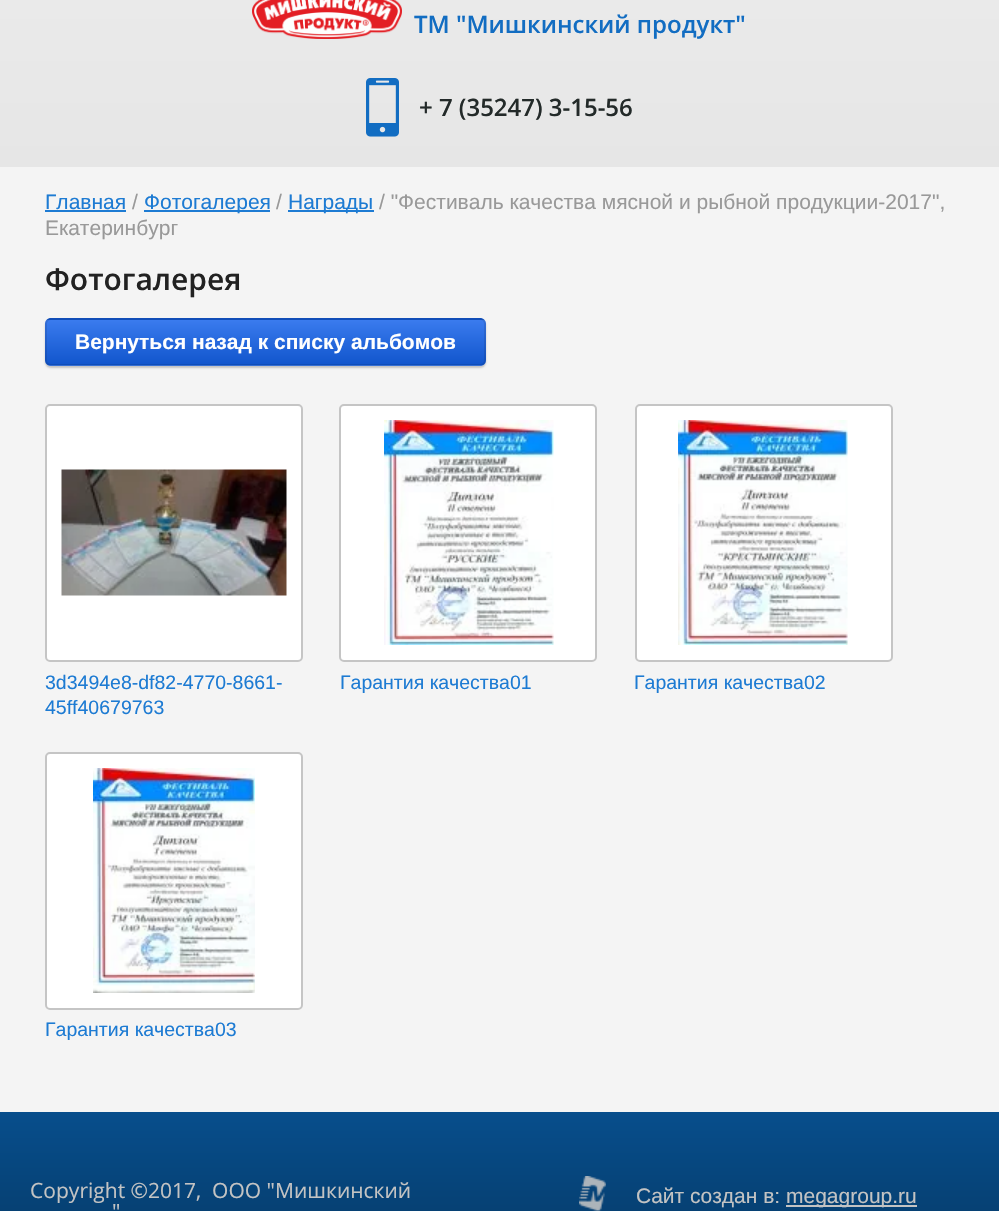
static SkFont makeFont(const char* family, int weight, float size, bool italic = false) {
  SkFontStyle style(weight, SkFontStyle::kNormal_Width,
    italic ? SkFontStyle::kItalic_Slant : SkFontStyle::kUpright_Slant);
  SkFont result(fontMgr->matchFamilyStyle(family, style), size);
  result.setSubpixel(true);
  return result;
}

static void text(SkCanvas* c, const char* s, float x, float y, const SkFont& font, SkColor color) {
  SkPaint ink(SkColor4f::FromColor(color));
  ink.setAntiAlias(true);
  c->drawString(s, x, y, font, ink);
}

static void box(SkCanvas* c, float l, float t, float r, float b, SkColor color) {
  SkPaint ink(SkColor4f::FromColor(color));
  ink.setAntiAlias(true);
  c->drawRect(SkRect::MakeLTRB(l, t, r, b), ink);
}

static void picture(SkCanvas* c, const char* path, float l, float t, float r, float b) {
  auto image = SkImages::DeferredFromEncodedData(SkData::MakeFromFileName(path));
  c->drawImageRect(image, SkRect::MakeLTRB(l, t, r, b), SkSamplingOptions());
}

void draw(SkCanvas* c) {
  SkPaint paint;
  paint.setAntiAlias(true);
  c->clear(0xfff4f4f4);
  {
    const SkColor colors[] = {0xffebebeb, 0xffe6e6e6};
    const float stops[] = {0, 1};
    const SkPoint ends[] = {{500, -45}, {500, 167}};
    paint.setShader(SkGradientShader::MakeLinear(ends, colors, stops, 2, SkTileMode::kClamp));
    paint.setAlpha(255);
  }
  c->drawRect(SkRect::MakeLTRB(0, 0, 999, 167), paint);
  picture(c, "img_01.png", 252, 0, 402, 39);
  SkFont face1 = makeFont("Open Sans", 600, 24);
  text(c, "ТМ \"Мишкинский продукт\"", 414, 33, face1, 0xff126dc2);
  picture(c, "img_02.png", 366, 78, 399, 137);
  text(c, "+ 7 (35247) 3-15-56", 419, 116, face1, 0xff232a29);
  SkFont face2 = makeFont("Liberation Sans", 400, 21);
  text(c, "Главная", 45, 209, face2, 0xff1d7bd3);
  box(c, 45, 210, 126, 212, 0xff1d7bd3);
  text(c, "/", 132, 209, face2, 0xff999999);
  box(c, 144, 210, 270, 212, 0xff1d7bd3);
  text(c, "Фотогалерея", 144, 209, face2, 0xff1d7bd3);
  text(c, "/", 276, 209, face2, 0xff999999);
  box(c, 288, 210, 374, 212, 0xff1d7bd3);
  text(c, "Награды", 288, 209, face2, 0xff1d7bd3);
  text(c, "/ \"Фестиваль качества мясной и рыбной продукции-2017\",", 379, 209, face2, 0xff999999);
  text(c, "Екатеринбург", 45, 235, face2, 0xff999999);
  SkFont face3 = makeFont("Open Sans", 600, 30);
  text(c, "Фотогалерея", 45, 290, face3, 0xff222222);
  paint.setShader(nullptr);
  paint.setColor(0x33000000);
  paint.setMaskFilter(SkMaskFilter::MakeBlur(kNormal_SkBlurStyle, 1));
  c->drawRoundRect(SkRect::MakeLTRB(45, 320, 486, 368), 6, 6, paint);
  paint.setMaskFilter(nullptr);
  c->save();
  c->clipPath(SkPathBuilder().moveTo(51, 318).lineTo(480, 318).cubicTo(483.5f, 318, 486, 320.5f, 486, 324).lineTo(486, 360).cubicTo(486, 363.5f, 483.5f, 366, 480, 366).lineTo(51, 366).cubicTo(47.5f, 366, 45, 363.5f, 45, 360).lineTo(45, 324).cubicTo(45, 320.5f, 47.5f, 318, 51, 318).close().detach(), true);
  {
    const SkColor colors[] = {0xff3b7cef, 0xff1155cc};
    const float stops[] = {0, 1};
    const SkPoint ends[] = {{266, 274}, {266, 320}};
    paint.setShader(SkGradientShader::MakeLinear(ends, colors, stops, 2, SkTileMode::kClamp));
    paint.setAlpha(255);
  }
  c->drawRect(SkRect::MakeLTRB(45, 318, 486, 320), paint);
  {
    const SkColor colors[] = {0xff3b7cef, 0xff1155cc};
    const float stops[] = {0, 1};
    const SkPoint ends[] = {{266, 319}, {266, 365}};
    paint.setShader(SkGradientShader::MakeLinear(ends, colors, stops, 2, SkTileMode::kClamp));
    paint.setAlpha(255);
  }
  c->drawRect(SkRect::MakeLTRB(45, 320, 486, 365), paint);
  {
    const SkColor colors[] = {0xff3b7cef, 0xff1155cc};
    const float stops[] = {0, 1};
    const SkPoint ends[] = {{266, 364}, {266, 410}};
    paint.setShader(SkGradientShader::MakeLinear(ends, colors, stops, 2, SkTileMode::kClamp));
    paint.setAlpha(255);
  }
  c->drawRect(SkRect::MakeLTRB(45, 365, 486, 366), paint);
  c->restore();
  paint.setStyle(SkPaint::kStroke_Style);
  paint.setStrokeWidth(2);
  paint.setShader(nullptr);
  paint.setColor(0x1a000000);
  c->drawRoundRect(SkRect::MakeLTRB(46, 319, 485, 365), 5, 5, paint);
  SkFont face4 = makeFont("Liberation Sans", 700, 21);
  text(c, "Вернуться назад к списку альбомов", 75, 349, face4, 0xffffffff);
  paint.setStyle(SkPaint::kFill_Style);
  paint.setColor(0xffffffff);
  c->drawRoundRect(SkRect::MakeLTRB(46, 405, 302, 661), 4, 4, paint);
  paint.setStyle(SkPaint::kStroke_Style);
  paint.setColor(0xffc5c5c5);
  c->drawRoundRect(SkRect::MakeLTRB(46, 405, 302, 661), 4, 4, paint);
  picture(c, "img_03.png", 61, 469, 287, 596);
  SkFont face5 = makeFont("Liberation Sans", 400, 19.5f);
  text(c, "3d3494e8-df82-4770-8661-", 45, 689, face5, 0xff1d7bd3);
  text(c, "45ff40679763", 45, 714, face5, 0xff1d7bd3);
  paint.setStyle(SkPaint::kFill_Style);
  paint.setColor(0xffffffff);
  c->drawRoundRect(SkRect::MakeLTRB(340, 405, 596, 661), 4, 4, paint);
  paint.setStyle(SkPaint::kStroke_Style);
  paint.setColor(0xffc5c5c5);
  c->drawRoundRect(SkRect::MakeLTRB(340, 405, 596, 661), 4, 4, paint);
  picture(c, "img_04.png", 384, 420, 554, 645);
  text(c, "Гарантия качества01", 340, 689, face5, 0xff1d7bd3);
  paint.setStyle(SkPaint::kFill_Style);
  paint.setColor(0xffffffff);
  c->drawRoundRect(SkRect::MakeLTRB(636, 405, 892, 661), 4, 4, paint);
  paint.setStyle(SkPaint::kStroke_Style);
  paint.setColor(0xffc5c5c5);
  c->drawRoundRect(SkRect::MakeLTRB(636, 405, 892, 661), 4, 4, paint);
  picture(c, "img_05.png", 678, 420, 848, 645);
  text(c, "Гарантия качества02", 634, 689, face5, 0xff1d7bd3);
  paint.setStyle(SkPaint::kFill_Style);
  paint.setColor(0xffffffff);
  c->drawRoundRect(SkRect::MakeLTRB(46, 753, 302, 1009), 4, 4, paint);
  paint.setStyle(SkPaint::kStroke_Style);
  paint.setColor(0xffc5c5c5);
  c->drawRoundRect(SkRect::MakeLTRB(46, 753, 302, 1009), 4, 4, paint);
  picture(c, "img_06.png", 93, 768, 255, 993);
  text(c, "Гарантия качества03", 45, 1036, face5, 0xff1d7bd3);
  paint.setStyle(SkPaint::kFill_Style);
  {
    const SkColor colors[] = {0xff074e8c, 0xff053864};
    const float stops[] = {0, 1};
    const SkPoint ends[] = {{500, 1112}, {500, 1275}};
    paint.setShader(SkGradientShader::MakeLinear(ends, colors, stops, 2, SkTileMode::kClamp));
    paint.setAlpha(255);
  }
  c->drawRect(SkRect::MakeLTRB(0, 1112, 999, 1211), paint);
  SkFont face6 = makeFont("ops", 400, 21);
  text(c, "Copyright ©2017,  ООО \"Мишкинский", 30, 1198, face6, 0xffc3c3c3);
  text(c, "\"", 112, 1219, face6, 0xffc3c3c3);
  picture(c, "img_07.png", 579, 1176, 606, 1211);
  text(c, "Сайт создан в:", 636, 1203, face2, 0xffc3c3c3);
  box(c, 786, 1205, 917, 1207, 0xffc3c3c3);
  text(c, "megagroup.ru", 786, 1203, face2, 0xffc3c3c3);
}
